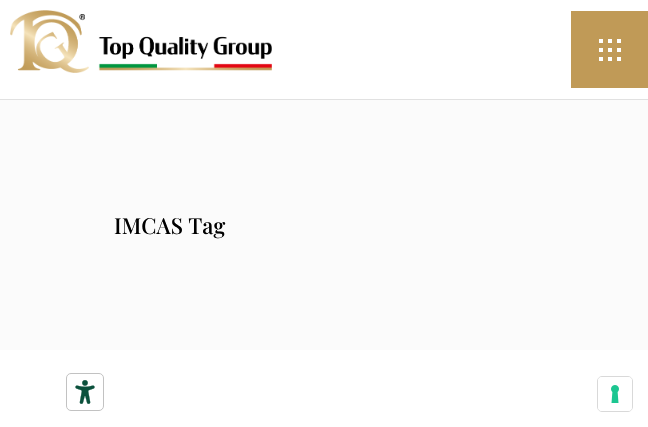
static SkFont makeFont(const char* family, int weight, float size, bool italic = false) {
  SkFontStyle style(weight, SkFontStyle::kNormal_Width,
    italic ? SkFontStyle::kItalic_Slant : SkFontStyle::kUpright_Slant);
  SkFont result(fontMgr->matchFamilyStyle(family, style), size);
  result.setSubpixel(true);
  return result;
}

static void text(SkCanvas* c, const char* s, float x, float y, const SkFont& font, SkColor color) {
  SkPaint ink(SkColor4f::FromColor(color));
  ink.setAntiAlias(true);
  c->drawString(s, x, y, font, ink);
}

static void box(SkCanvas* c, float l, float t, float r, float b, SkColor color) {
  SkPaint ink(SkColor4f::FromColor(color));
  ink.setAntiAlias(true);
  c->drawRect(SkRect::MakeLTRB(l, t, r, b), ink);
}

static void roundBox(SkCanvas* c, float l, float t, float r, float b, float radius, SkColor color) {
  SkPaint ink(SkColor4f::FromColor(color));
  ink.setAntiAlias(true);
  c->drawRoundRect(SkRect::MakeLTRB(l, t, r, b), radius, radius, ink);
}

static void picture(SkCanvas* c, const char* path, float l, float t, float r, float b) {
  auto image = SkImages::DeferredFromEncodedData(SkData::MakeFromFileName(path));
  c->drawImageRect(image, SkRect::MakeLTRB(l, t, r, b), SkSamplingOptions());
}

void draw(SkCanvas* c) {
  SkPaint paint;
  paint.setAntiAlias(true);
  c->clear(0xffffffff);
  box(c, 0, 99, 648, 100, 0xffe1e1e1);
  picture(c, "img_01.png", 10, 10, 272, 73);
  box(c, 571, 11, 648, 88, 0xffc09a57);
  box(c, 599, 39, 603, 43, 0xffffffff);
  box(c, 608, 39, 612, 43, 0xffffffff);
  box(c, 617, 39, 621, 43, 0xffffffff);
  box(c, 599, 48, 603, 52, 0xffffffff);
  box(c, 608, 48, 612, 52, 0xffffffff);
  box(c, 617, 48, 621, 52, 0xffffffff);
  box(c, 599, 57, 603, 61, 0xffffffff);
  box(c, 608, 57, 612, 61, 0xffffffff);
  box(c, 617, 57, 621, 61, 0xffffffff);
  box(c, 0, 100, 648, 350, 0xfffbfbfb);
  SkFont face1 = makeFont("Playfair Display", 500, 22);
  text(c, "IMCAS Tag", 114, 234, face1, 0xff000000);
  picture(c, "img_02.png", 75, 380, 95, 404);
  paint.setStyle(SkPaint::kStroke_Style);
  paint.setStrokeWidth(1);
  paint.setColor(0xffc2c2c2);
  c->drawRoundRect(SkRect::MakeLTRB(66.5f, 373.5f, 103.5f, 410.5f), 4.5f, 4.5f, paint);
  paint.setColor(0xffd9d9d9);
  c->drawRoundRect(SkRect::MakeLTRB(597.5f, 376.5f, 632.5f, 411.5f), 4.5f, 4.5f, paint);
  roundBox(c, 598, 377, 632, 411, 4, 0xffffffff);
  picture(c, "img_03.png", 611, 385, 619, 403);
}
